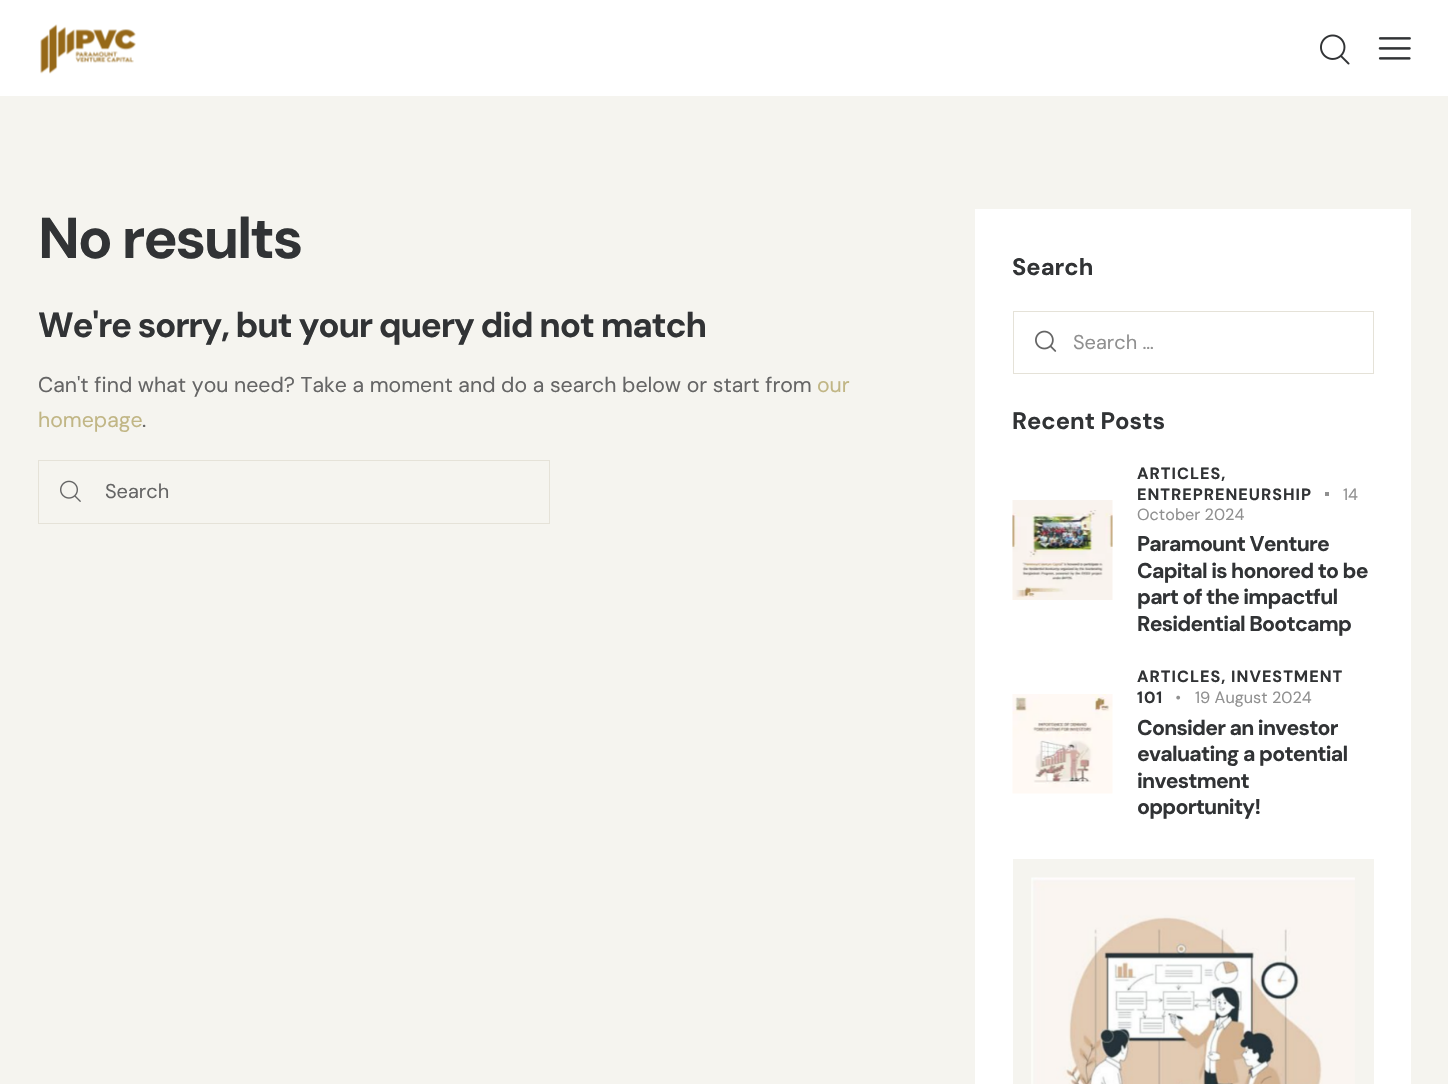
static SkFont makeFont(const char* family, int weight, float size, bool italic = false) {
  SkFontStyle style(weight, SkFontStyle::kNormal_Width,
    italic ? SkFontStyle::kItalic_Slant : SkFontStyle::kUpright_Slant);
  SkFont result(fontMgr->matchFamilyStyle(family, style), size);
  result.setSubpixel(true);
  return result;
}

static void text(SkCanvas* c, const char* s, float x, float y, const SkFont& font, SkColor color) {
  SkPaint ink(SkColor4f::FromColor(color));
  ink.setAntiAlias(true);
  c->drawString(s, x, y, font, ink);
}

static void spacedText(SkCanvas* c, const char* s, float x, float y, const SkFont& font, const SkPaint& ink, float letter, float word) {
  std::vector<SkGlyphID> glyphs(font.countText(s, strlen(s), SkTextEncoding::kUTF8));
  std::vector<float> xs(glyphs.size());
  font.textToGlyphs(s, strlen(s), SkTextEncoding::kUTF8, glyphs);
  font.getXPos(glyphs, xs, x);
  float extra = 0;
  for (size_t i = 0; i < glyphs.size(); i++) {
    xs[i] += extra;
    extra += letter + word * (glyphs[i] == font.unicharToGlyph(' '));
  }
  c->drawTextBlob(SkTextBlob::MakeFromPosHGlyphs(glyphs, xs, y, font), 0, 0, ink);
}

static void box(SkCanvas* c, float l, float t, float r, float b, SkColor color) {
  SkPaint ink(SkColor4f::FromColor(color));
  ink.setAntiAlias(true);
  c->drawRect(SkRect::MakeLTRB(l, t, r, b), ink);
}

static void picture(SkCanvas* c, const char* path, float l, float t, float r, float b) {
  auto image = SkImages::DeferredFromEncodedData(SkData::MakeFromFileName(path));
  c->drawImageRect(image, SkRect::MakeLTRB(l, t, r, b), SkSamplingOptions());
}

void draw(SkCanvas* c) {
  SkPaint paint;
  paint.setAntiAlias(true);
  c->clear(0xfff5f4ef);
  box(c, 0, 0, 1448, 96, 0xffffffff);
  picture(c, "img_01.png", 40, 24, 136, 74);
  picture(c, "img_02.png", 1320, 34, 1350, 65);
  picture(c, "img_03.png", 1378, 37, 1411, 60);
  SkFont face1 = makeFont("DM Sans", 700, 57.5f);
  paint.setColor(0xff313335);
  spacedText(c, "No results", 38, 258, face1, paint, -2.25f, 0);
  SkFont face2 = makeFont("DM Sans", 700, 35);
  spacedText(c, "We're sorry, but your query did not match", 38, 337, face2, paint, -1.25f, 0);
  SkFont face3 = makeFont("DM Sans", 400, 21.25f);
  text(c, "Can't find what you need? Take a moment and do a search below or start from", 38, 392, face3, 0xff656565);
  text(c, "our", 817, 392, face3, 0xffc1b685);
  text(c, "homepage", 38, 427, face3, 0xffc1b685);
  text(c, ".", 142, 427, face3, 0xff656565);
  paint.setStyle(SkPaint::kStroke_Style);
  paint.setStrokeWidth(1);
  paint.setColor(0xffe5e2d8);
  c->drawRect(SkRect::MakeLTRB(38.5f, 460.5f, 549.5f, 523.5f), paint);
  picture(c, "img_04.png", 60, 480, 81, 502);
  SkFont face4 = makeFont("DM Sans", 400, 20);
  text(c, "Search", 105, 498, face4, 0xff656565);
  box(c, 975, 209, 1411, 1084, 0xffffffff);
  SkFont face5 = makeFont("DM Sans", 700, 23.75f);
  text(c, "Search", 1012, 275, face5, 0xff313335);
  c->drawRect(SkRect::MakeLTRB(1013.5f, 311.5f, 1373.5f, 373.5f), paint);
  picture(c, "img_05.png", 1035, 330, 1057, 352);
  text(c, "Search …", 1073, 349, face4, 0xff909090);
  text(c, "Recent Posts", 1012, 429, face5, 0xff313335);
  picture(c, "img_06.png", 1012, 500, 1113, 600);
  SkFont face6 = makeFont("DM Sans", 700, 16.25f);
  paint.setStyle(SkPaint::kFill_Style);
  paint.setColor(0xff313335);
  spacedText(c, "ARTICLES,", 1137, 479, face6, paint, 1, 0);
  spacedText(c, "ENTREPRENEURSHIP", 1137, 500, face6, paint, 1, 0);
  box(c, 1325, 492, 1329, 496, 0xff909090);
  SkFont face7 = makeFont("DM Sans", 400, 16.25f);
  text(c, "14", 1343, 500, face7, 0xff909090);
  text(c, "October 2024", 1137, 520, face7, 0xff909090);
  SkFont face8 = makeFont("DM Sans", 700, 21.25f);
  spacedText(c, "Paramount Venture", 1137, 551, face8, paint, -0.75f, 0);
  spacedText(c, "Capital is honored to be", 1137, 578, face8, paint, -0.75f, 0);
  spacedText(c, "part of the impactful", 1137, 604, face8, paint, -0.75f, 0);
  spacedText(c, "Residential Bootcamp", 1137, 631, face8, paint, -0.75f, 0);
  picture(c, "img_07.png", 1012, 694, 1113, 794);
  spacedText(c, "ARTICLES, INVESTMENT", 1137, 682, face6, paint, 1, 0);
  spacedText(c, "101", 1137, 703, face6, paint, 1, 0);
  picture(c, "img_08.png", 1176, 695, 1181, 700);
  text(c, "19 August 2024", 1195, 703, face7, 0xff909090);
  spacedText(c, "Consider an investor", 1137, 735, face8, paint, -0.75f, 0);
  spacedText(c, "evaluating a potential", 1137, 761, face8, paint, -0.75f, 0);
  spacedText(c, "investment", 1137, 788, face8, paint, -0.75f, 0);
  spacedText(c, "opportunity!", 1137, 814, face8, paint, -0.75f, 0);
  box(c, 1013, 859, 1374, 1084, 0xfff5f4ef);
  picture(c, "img_09.png", 1031, 877, 1355, 1084);
}
